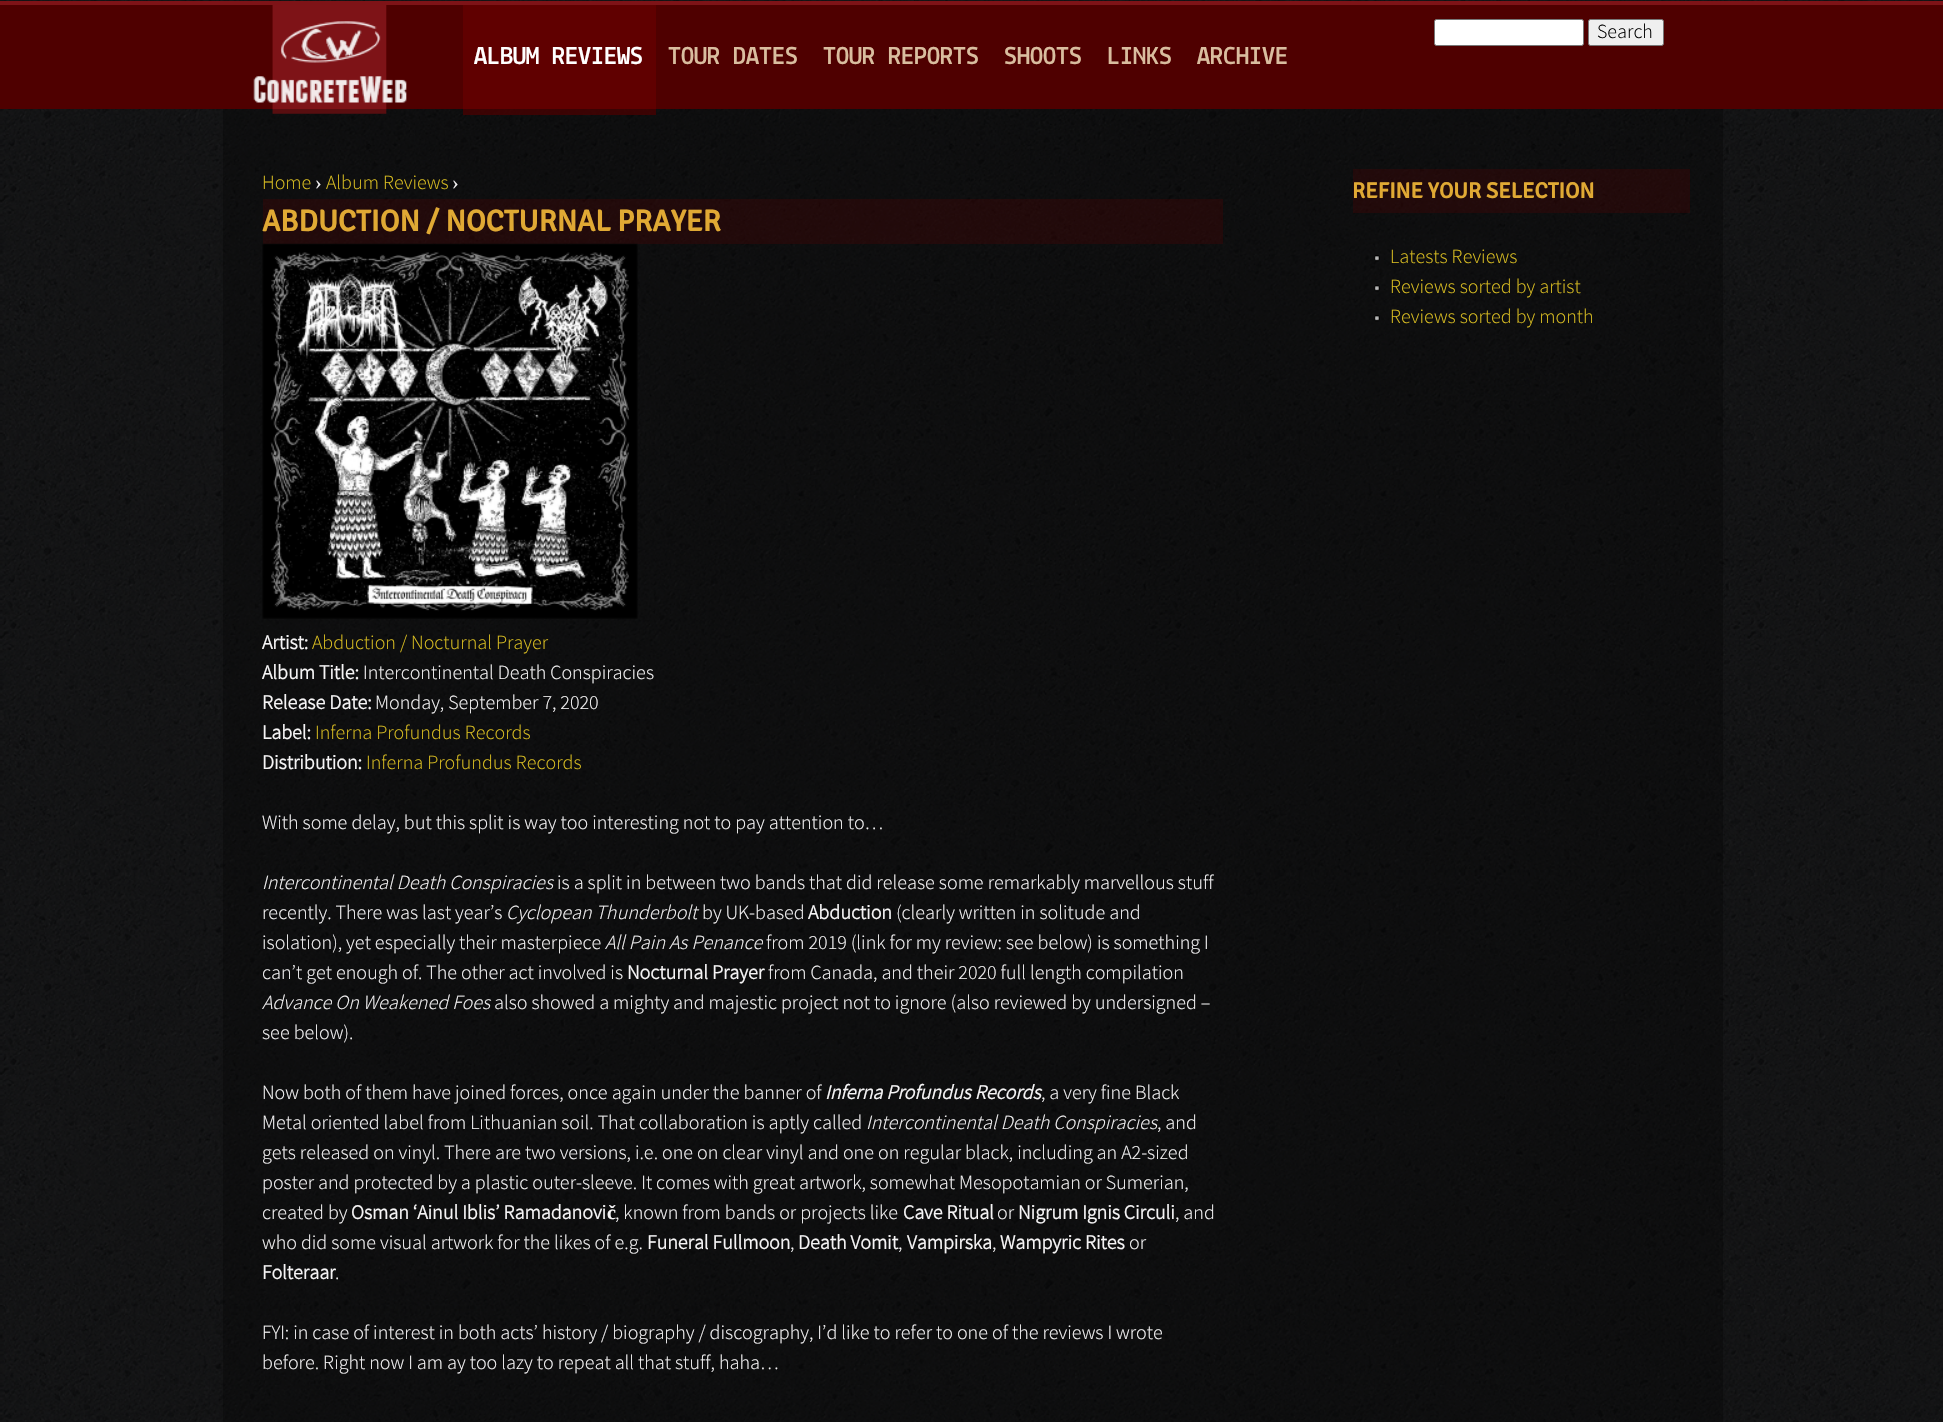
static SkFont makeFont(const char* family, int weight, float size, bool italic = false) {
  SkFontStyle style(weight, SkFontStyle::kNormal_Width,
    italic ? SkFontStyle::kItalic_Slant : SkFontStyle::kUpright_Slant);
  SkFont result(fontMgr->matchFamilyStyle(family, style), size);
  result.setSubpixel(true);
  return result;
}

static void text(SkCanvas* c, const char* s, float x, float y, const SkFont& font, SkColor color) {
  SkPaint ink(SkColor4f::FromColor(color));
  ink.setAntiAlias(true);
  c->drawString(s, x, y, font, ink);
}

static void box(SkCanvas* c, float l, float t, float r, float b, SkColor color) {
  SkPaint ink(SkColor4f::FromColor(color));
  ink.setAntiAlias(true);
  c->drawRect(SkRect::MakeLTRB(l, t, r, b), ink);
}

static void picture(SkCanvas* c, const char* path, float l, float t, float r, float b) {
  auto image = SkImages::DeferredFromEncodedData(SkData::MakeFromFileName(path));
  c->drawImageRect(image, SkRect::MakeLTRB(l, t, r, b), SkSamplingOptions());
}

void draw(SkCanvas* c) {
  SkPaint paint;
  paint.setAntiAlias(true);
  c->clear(0xffffffff);
  picture(c, "img_01.png", 0, 0, 1943, 1422);
  box(c, 0, 5, 1943, 109, 0xff4f0000);
  box(c, 0, 1, 1943, 5, 0xff7e1317);
  picture(c, "img_02.png", 253, 5, 407, 114);
  paint.setColor(0xffffffff);
  c->drawRoundRect(SkRect::MakeLTRB(1434.5f, 19.5f, 1583.5f, 45.5f), 2, 2, paint);
  paint.setStyle(SkPaint::kStroke_Style);
  paint.setStrokeWidth(1);
  paint.setColor(0xff767676);
  c->drawRoundRect(SkRect::MakeLTRB(1434.5f, 19.5f, 1583.5f, 45.5f), 2, 2, paint);
  paint.setStyle(SkPaint::kFill_Style);
  paint.setColor(0xffefefef);
  c->drawRoundRect(SkRect::MakeLTRB(1588.5f, 19.5f, 1663.5f, 45.5f), 2, 2, paint);
  paint.setStyle(SkPaint::kStroke_Style);
  paint.setColor(0xff767676);
  c->drawRoundRect(SkRect::MakeLTRB(1588.5f, 19.5f, 1663.5f, 45.5f), 2, 2, paint);
  SkFont face1 = makeFont("Source Sans Pro", 300, 20);
  text(c, "Search", 1597, 38, face1, 0xff000000);
  box(c, 463, 5, 656, 115, 0xcc640000);
  SkFont face2 = makeFont("Lekton", 700, 26);
  text(c, "ALBUM REVIEWS", 474, 64, face2, 0xffffffff);
  text(c, "TOUR DATES", 668, 64, face2, 0xffd9bd9f);
  text(c, "TOUR REPORTS", 823, 64, face2, 0xffd9bd9f);
  text(c, "SHOOTS", 1004, 64, face2, 0xffd9bd9f);
  text(c, "LINKS", 1107, 64, face2, 0xffd9bd9f);
  text(c, "ARCHIVE", 1197, 64, face2, 0xffd9bd9f);
  box(c, 223, 109, 1723, 1422, 0x4d000000);
  text(c, "Home", 262, 189, face1, 0xffd9bd21);
  SkFont face3 = makeFont("Liberation Serif", 400, 20);
  text(c, "›", 315, 189, face3, 0xfff5f4f5);
  text(c, "Album Reviews", 326, 189, face1, 0xffd9bd21);
  text(c, "›", 452, 189, face3, 0xfff5f4f5);
  box(c, 263, 199, 1223, 244, 0x4d4f0000);
  SkFont face4 = makeFont("Signika", 700, 30);
  text(c, "ABDUCTION / NOCTURNAL PRAYER", 262, 231, face4, 0xffe0a934);
  picture(c, "img_03.png", 262, 243, 638, 619);
  SkFont face5 = makeFont("Source Sans Pro", 700, 20);
  text(c, "Artist:", 262, 649, face5, 0xfff5f4f5);
  text(c, "Abduction / Nocturnal Prayer", 312, 649, face1, 0xffd9bd21);
  text(c, "Album Title:", 262, 679, face5, 0xfff5f4f5);
  text(c, "Intercontinental Death Conspiracies", 363, 679, face1, 0xfff5f4f5);
  text(c, "Release Date:", 262, 709, face5, 0xfff5f4f5);
  text(c, "Monday, September 7, 2020", 375, 709, face1, 0xfff5f4f5);
  text(c, "Label:", 262, 739, face5, 0xfff5f4f5);
  text(c, "Inferna Profundus Records", 315, 739, face1, 0xffd9bd21);
  text(c, "Distribution:", 262, 769, face5, 0xfff5f4f5);
  text(c, "Inferna Profundus Records", 366, 769, face1, 0xffd9bd21);
  text(c, "With some delay, but this split is way too interesting not to pay attention to…", 262, 829, face1, 0xfff5f4f5);
  SkFont face6 = makeFont("Source Sans Pro", 300, 20, true);
  text(c, "Intercontinental Death Conspiracies", 262, 889, face6, 0xfff5f4f5);
  text(c, "is a split in between two bands that did release some remarkably marvellous stuff", 557, 889, face1, 0xfff5f4f5);
  text(c, "recently. There was last year’s", 262, 919, face1, 0xfff5f4f5);
  text(c, "Cyclopean Thunderbolt", 506, 919, face6, 0xfff5f4f5);
  text(c, "by UK-based", 702, 919, face1, 0xfff5f4f5);
  text(c, "Abduction", 808, 919, face5, 0xfff5f4f5);
  text(c, "(clearly written in solitude and", 896, 919, face1, 0xfff5f4f5);
  text(c, "isolation), yet especially their masterpiece", 262, 949, face1, 0xfff5f4f5);
  text(c, "All Pain As Penance", 605, 949, face6, 0xfff5f4f5);
  text(c, "from 2019 (link for my review: see below) is something I", 766, 949, face1, 0xfff5f4f5);
  text(c, "can’t get enough of. The other act involved is", 262, 979, face1, 0xfff5f4f5);
  text(c, "Nocturnal Prayer", 627, 979, face5, 0xfff5f4f5);
  text(c, "from Canada, and their 2020 full length compilation", 768, 979, face1, 0xfff5f4f5);
  text(c, "Advance On Weakened Foes", 262, 1009, face6, 0xfff5f4f5);
  text(c, "also showed a mighty and majestic project not to ignore (also reviewed by undersigned –", 494, 1009, face1, 0xfff5f4f5);
  text(c, "see below).", 262, 1039, face1, 0xfff5f4f5);
  text(c, "Now both of them have joined forces, once again under the banner of", 262, 1099, face1, 0xfff5f4f5);
  SkFont face7 = makeFont("Source Sans Pro", 700, 20, true);
  text(c, "Inferna Profundus Records", 825, 1099, face7, 0xfff5f4f5);
  text(c, ", a very fine Black", 1041, 1099, face1, 0xfff5f4f5);
  text(c, "Metal oriented label from Lithuanian soil. That collaboration is aptly called", 262, 1129, face1, 0xfff5f4f5);
  text(c, "Intercontinental Death Conspiracies", 866, 1129, face6, 0xfff5f4f5);
  text(c, ", and", 1157, 1129, face1, 0xfff5f4f5);
  text(c, "gets released on vinyl. There are two versions, i.e. one on clear vinyl and one on regular black, including an A2-sized", 262, 1159, face1, 0xfff5f4f5);
  text(c, "poster and protected by a plastic outer-sleeve. It comes with great artwork, somewhat Mesopotamian or Sumerian,", 262, 1189, face1, 0xfff5f4f5);
  text(c, "created by", 262, 1219, face1, 0xfff5f4f5);
  text(c, "Osman ‘Ainul Iblis’ Ramadanovi", 351, 1219, face5, 0xfff5f4f5);
  SkFont face8 = makeFont("Liberation Serif", 700, 20);
  text(c, "č", 607, 1219, face8, 0xfff5f4f5);
  text(c, ", known from bands or projects like", 615, 1219, face1, 0xfff5f4f5);
  text(c, "Cave Ritual", 903, 1219, face5, 0xfff5f4f5);
  text(c, "or", 997, 1219, face1, 0xfff5f4f5);
  text(c, "Nigrum Ignis Circuli", 1018, 1219, face5, 0xfff5f4f5);
  text(c, ", and", 1175, 1219, face1, 0xfff5f4f5);
  text(c, "who did some visual artwork for the likes of e.g.", 262, 1249, face1, 0xfff5f4f5);
  text(c, "Funeral Fullmoon", 647, 1249, face5, 0xfff5f4f5);
  text(c, ",", 790, 1249, face1, 0xfff5f4f5);
  text(c, "Death Vomit", 798, 1249, face5, 0xfff5f4f5);
  text(c, ",", 898, 1249, face1, 0xfff5f4f5);
  text(c, "Vampirska", 907, 1249, face5, 0xfff5f4f5);
  text(c, ",", 992, 1249, face1, 0xfff5f4f5);
  text(c, "Wampyric Rites", 1000, 1249, face5, 0xfff5f4f5);
  text(c, "or", 1129, 1249, face1, 0xfff5f4f5);
  text(c, "Folteraar", 262, 1279, face5, 0xfff5f4f5);
  text(c, ".", 335, 1279, face1, 0xfff5f4f5);
  text(c, "FYI: in case of interest in both acts’ history / biography / discography, I’d like to refer to one of the reviews I wrote", 262, 1339, face1, 0xfff5f4f5);
  text(c, "before. Right now I am ay too lazy to repeat all that stuff, haha…", 262, 1369, face1, 0xfff5f4f5);
  box(c, 1353, 169, 1690, 213, 0x4d4f0000);
  SkFont face9 = makeFont("Signika", 700, 22);
  text(c, "REFINE YOUR SELECTION", 1352, 198, face9, 0xffe0a934);
  picture(c, "img_04.png", 1374, 255, 1380, 262);
  text(c, "Latests Reviews", 1390, 263, face1, 0xffd9bd21);
  picture(c, "img_05.png", 1374, 285, 1380, 292);
  text(c, "Reviews sorted by artist", 1390, 293, face1, 0xffd9bd21);
  picture(c, "img_06.png", 1374, 315, 1380, 322);
  text(c, "Reviews sorted by month", 1390, 323, face1, 0xffd9bd21);
}
